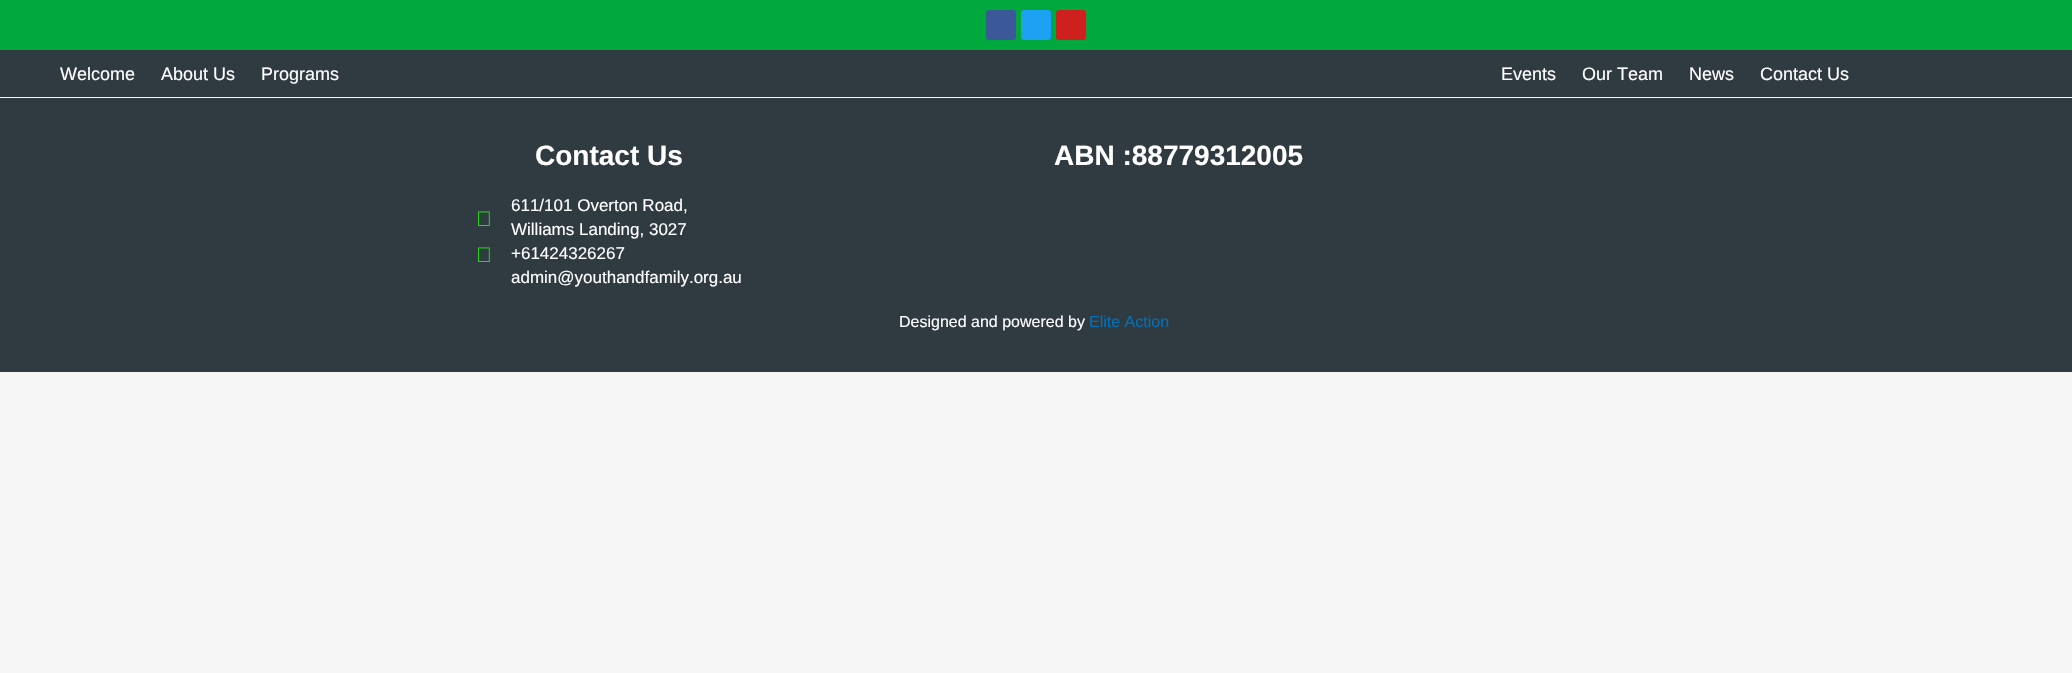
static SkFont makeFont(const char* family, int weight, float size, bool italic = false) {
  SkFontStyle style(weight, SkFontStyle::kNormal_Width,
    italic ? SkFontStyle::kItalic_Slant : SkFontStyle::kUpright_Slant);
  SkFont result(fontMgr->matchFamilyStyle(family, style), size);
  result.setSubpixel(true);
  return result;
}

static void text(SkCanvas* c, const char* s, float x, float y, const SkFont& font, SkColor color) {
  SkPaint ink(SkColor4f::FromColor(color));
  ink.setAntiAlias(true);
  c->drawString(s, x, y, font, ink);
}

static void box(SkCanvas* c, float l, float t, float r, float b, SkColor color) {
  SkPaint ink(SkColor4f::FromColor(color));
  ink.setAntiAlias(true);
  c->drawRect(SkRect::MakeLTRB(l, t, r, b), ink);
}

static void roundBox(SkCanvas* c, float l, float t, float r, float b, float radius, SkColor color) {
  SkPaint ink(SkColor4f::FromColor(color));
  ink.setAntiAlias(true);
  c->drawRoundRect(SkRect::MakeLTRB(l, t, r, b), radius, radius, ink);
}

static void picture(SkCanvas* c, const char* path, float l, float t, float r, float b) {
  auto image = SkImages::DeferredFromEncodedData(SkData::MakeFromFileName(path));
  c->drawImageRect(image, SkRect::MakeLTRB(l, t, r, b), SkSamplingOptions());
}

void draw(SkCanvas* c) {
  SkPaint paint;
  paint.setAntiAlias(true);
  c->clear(0xfff5f5f5);
  box(c, 0, 0, 2072, 50, 0xff00a83d);
  roundBox(c, 986, 10, 1016, 40, 3, 0xff3b5998);
  roundBox(c, 1021, 10, 1051, 40, 3, 0xff1da1f2);
  roundBox(c, 1056, 10, 1086, 40, 3, 0xffcd201f);
  box(c, 0, 50, 2072, 97, 0xff303b41);
  SkFont face1 = makeFont("Liberation Sans", 400, 18);
  text(c, "Welcome", 60, 80, face1, 0xffffffff);
  text(c, "About Us", 161, 80, face1, 0xffffffff);
  text(c, "Programs", 261, 80, face1, 0xffffffff);
  text(c, "Events", 1501, 80, face1, 0xffffffff);
  text(c, "Our Team", 1582, 80, face1, 0xffffffff);
  text(c, "News", 1689, 80, face1, 0xffffffff);
  text(c, "Contact Us", 1760, 80, face1, 0xffffffff);
  box(c, 0, 98, 2072, 372, 0xff303b41);
  SkFont face2 = makeFont("Liberation Sans", 700, 28);
  text(c, "Contact Us", 535, 165, face2, 0xffffffff);
  picture(c, "img_01.png", 478, 211, 490, 226);
  SkFont face3 = makeFont("Liberation Sans", 400, 17);
  text(c, "611/101 Overton Road,", 511, 211, face3, 0xffffffff);
  text(c, "Williams Landing, 3027", 511, 235, face3, 0xffffffff);
  picture(c, "img_01.png", 478, 247, 490, 262);
  text(c, "+61424326267", 511, 259, face3, 0xffffffff);
  text(c, "admin@youthandfamily.org.au", 511, 283, face3, 0xffffffff);
  text(c, "ABN :88779312005", 1054, 165, face2, 0xffffffff);
  SkFont face4 = makeFont("Liberation Sans", 400, 16);
  text(c, "Designed and powered by", 899, 327, face4, 0xffffffff);
  text(c, "Elite Action", 1089, 327, face4, 0xff0170b9);
}
